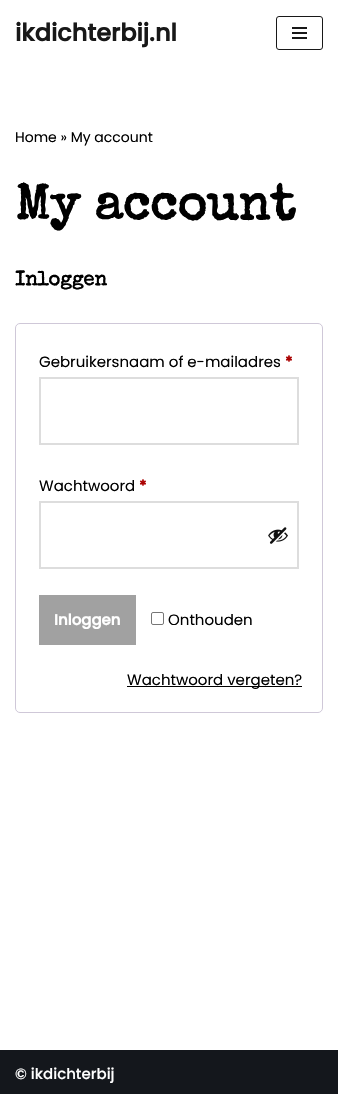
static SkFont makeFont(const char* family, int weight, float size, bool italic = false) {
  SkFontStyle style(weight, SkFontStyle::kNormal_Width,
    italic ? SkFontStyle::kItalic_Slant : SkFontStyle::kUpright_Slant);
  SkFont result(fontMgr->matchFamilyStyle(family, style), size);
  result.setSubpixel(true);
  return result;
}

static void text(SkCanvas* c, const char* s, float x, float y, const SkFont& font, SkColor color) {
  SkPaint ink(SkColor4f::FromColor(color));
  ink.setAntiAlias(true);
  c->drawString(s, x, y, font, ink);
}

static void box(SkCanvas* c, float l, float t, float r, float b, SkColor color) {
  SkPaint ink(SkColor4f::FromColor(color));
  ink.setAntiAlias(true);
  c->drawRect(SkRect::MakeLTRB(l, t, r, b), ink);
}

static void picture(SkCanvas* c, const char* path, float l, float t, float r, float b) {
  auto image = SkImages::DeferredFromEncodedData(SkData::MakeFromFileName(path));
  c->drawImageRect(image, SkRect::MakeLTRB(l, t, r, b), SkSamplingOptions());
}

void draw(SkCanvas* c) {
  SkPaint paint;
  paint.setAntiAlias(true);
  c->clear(0xffffffff);
  SkFont face1 = makeFont("Poppins", 700, 24);
  text(c, "ikdichterbij.nl", 15, 41, face1, 0xff181818);
  paint.setStyle(SkPaint::kStroke_Style);
  paint.setStrokeWidth(1);
  paint.setColor(0xff181818);
  c->drawRoundRect(SkRect::MakeLTRB(276.5f, 16.5f, 322.5f, 49.5f), 2.5f, 2.5f, paint);
  box(c, 292, 27, 307, 29, 0xff181818);
  box(c, 292, 32, 307, 34, 0xff181818);
  box(c, 292, 37, 307, 39, 0xff181818);
  SkFont face2 = makeFont("Poppins", 400, 14);
  text(c, "Home » My account", 15, 142, face2, 0xff000000);
  SkFont face3 = makeFont("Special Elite", 700, 50);
  text(c, "My account", 15, 219, face3, 0xff000000);
  SkFont face4 = makeFont("Special Elite", 700, 20);
  text(c, "Inloggen", 15, 285, face4, 0xff000000);
  paint.setColor(0xffcfc8d8);
  c->drawRoundRect(SkRect::MakeLTRB(15.5f, 323.5f, 322.5f, 712.5f), 4.5f, 4.5f, paint);
  SkFont face5 = makeFont("Poppins", 400, 15);
  text(c, "Gebruikersnaam of e-mailadres", 39, 367, face5, 0xff000000);
  SkFont face6 = makeFont("Poppins", 700, 15);
  text(c, "*", 285, 367, face6, 0xffaa0000);
  paint.setStrokeWidth(2);
  paint.setColor(0xffdddddd);
  c->drawRect(SkRect::MakeLTRB(40, 378, 298, 444), paint);
  text(c, "Wachtwoord", 39, 491, face5, 0xff000000);
  text(c, "*", 139, 491, face6, 0xffaa0000);
  c->drawRect(SkRect::MakeLTRB(40, 502, 298, 568), paint);
  picture(c, "img_01.png", 268, 527, 288, 544);
  box(c, 39, 595, 136, 645, 0xffa1a1a1);
  text(c, "Inloggen", 54, 625, face6, 0xffffffff);
  paint.setStrokeWidth(1);
  paint.setColor(0xff767676);
  c->drawRoundRect(SkRect::MakeLTRB(151.5f, 612.5f, 163.5f, 624.5f), 1.5f, 1.5f, paint);
  text(c, "Onthouden", 168, 625, face5, 0xff000000);
  box(c, 127, 686, 302, 687, 0xff000000);
  text(c, "Wachtwoord vergeten?", 127, 685, face5, 0xff000000);
  box(c, 0, 1050, 338, 1094, 0xff14171c);
  SkFont face7 = makeFont("Poppins", 500, 15);
  text(c, "© ikdichterbij", 15, 1079, face7, 0xffffffff);
}
